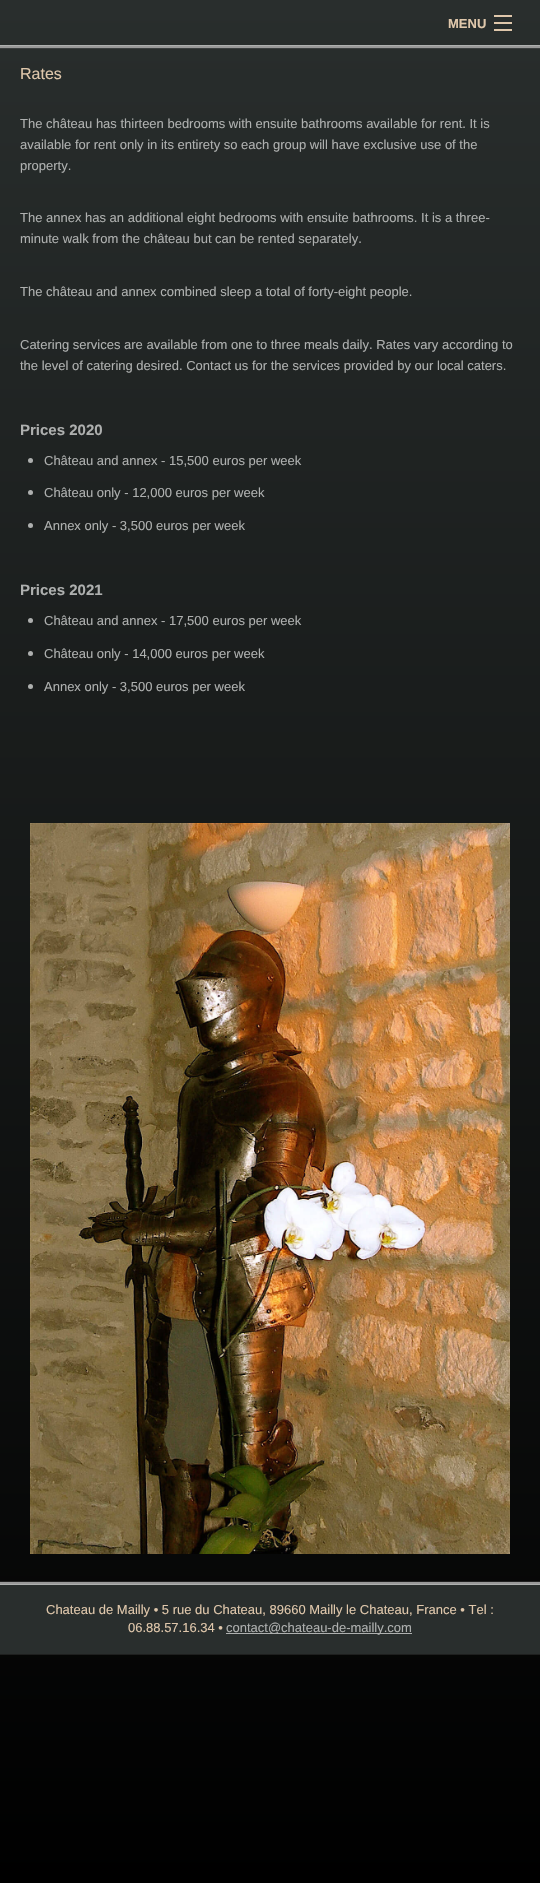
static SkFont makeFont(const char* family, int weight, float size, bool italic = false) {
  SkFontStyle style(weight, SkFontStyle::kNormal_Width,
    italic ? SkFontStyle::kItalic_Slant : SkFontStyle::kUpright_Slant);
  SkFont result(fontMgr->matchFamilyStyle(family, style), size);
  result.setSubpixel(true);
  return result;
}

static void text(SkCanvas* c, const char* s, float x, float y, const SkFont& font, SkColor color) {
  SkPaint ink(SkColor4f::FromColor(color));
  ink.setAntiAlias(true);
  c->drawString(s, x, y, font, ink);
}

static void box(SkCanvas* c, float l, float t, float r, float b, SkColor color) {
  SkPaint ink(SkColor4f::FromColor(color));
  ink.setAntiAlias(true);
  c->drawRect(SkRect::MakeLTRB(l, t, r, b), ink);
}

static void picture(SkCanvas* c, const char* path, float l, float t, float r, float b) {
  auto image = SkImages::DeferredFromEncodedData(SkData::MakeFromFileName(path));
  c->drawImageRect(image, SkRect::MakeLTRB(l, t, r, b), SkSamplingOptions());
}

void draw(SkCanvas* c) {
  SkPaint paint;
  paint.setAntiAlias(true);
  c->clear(0xffffffff);
  {
    const SkColor colors[] = {0xff292e2d, 0xff000000};
    const float stops[] = {0, 1};
    const SkPoint ends[] = {{270, 0}, {270, 1883}};
    paint.setShader(SkGradientShader::MakeLinear(ends, colors, stops, 2, SkTileMode::kClamp));
    paint.setAlpha(255);
  }
  c->drawRect(SkRect::MakeLTRB(0, 0, 540, 1883), paint);
  c->save();
  c->clipRect(SkRect::MakeLTRB(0, 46, 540, 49));
  paint.setShader(nullptr);
  paint.setColor(0xff999999);
  paint.setMaskFilter(SkMaskFilter::MakeBlur(kNormal_SkBlurStyle, 0.5f));
  c->drawRect(SkRect::MakeLTRB(0, 0, 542, 48), paint);
  paint.setMaskFilter(nullptr);
  c->restore();
  box(c, 0, 45, 540, 46, 0xffaeb0af);
  SkFont face1 = makeFont("Liberation Sans", 700, 13);
  text(c, "MENU", 448, 28, face1, 0xffdfc7ab);
  box(c, 494, 29, 512, 31, 0xffdfc7ab);
  box(c, 494, 22, 512, 24, 0xffdfc7ab);
  box(c, 494, 15, 512, 17, 0xffdfc7ab);
  SkFont face2 = makeFont("Liberation Sans", 400, 16);
  text(c, "Rates", 20, 79, face2, 0xffdfc7ab);
  SkFont face3 = makeFont("Liberation Sans", 400, 13);
  text(c, "The château has thirteen bedrooms with ensuite bathrooms available for rent. It is", 20, 128, face3, 0xffaeb0af);
  text(c, "available for rent only in its entirety so each group will have exclusive use of the", 20, 149, face3, 0xffaeb0af);
  text(c, "property.", 20, 170, face3, 0xffaeb0af);
  text(c, "The annex has an additional eight bedrooms with ensuite bathrooms. It is a three-", 20, 222, face3, 0xffaeb0af);
  text(c, "minute walk from the château but can be rented separately.", 20, 243, face3, 0xffaeb0af);
  text(c, "The château and annex combined sleep a total of forty-eight people.", 20, 296, face3, 0xffaeb0af);
  text(c, "Catering services are available from one to three meals daily. Rates vary according to", 20, 349, face3, 0xffaeb0af);
  text(c, "the level of catering desired. Contact us for the services provided by our local caters.", 20, 370, face3, 0xffaeb0af);
  SkFont face4 = makeFont("Liberation Sans", 700, 15);
  text(c, "Prices 2020", 20, 435, face4, 0xffaeb0af);
  paint.setColor(0xffaeb0af);
  c->drawCircle(30.5f, 460.5f, 2.5f, paint);
  text(c, "Château and annex - 15,500 euros per week", 44, 465, face3, 0xffaeb0af);
  c->drawCircle(30.5f, 492.5f, 2.5f, paint);
  text(c, "Château only - 12,000 euros per week", 44, 497, face3, 0xffaeb0af);
  c->drawCircle(30.5f, 525.5f, 2.5f, paint);
  text(c, "Annex only - 3,500 euros per week", 44, 530, face3, 0xffaeb0af);
  text(c, "Prices 2021", 20, 595, face4, 0xffaeb0af);
  c->drawCircle(30.5f, 620.5f, 2.5f, paint);
  text(c, "Château and annex - 17,500 euros per week", 44, 625, face3, 0xffaeb0af);
  c->drawCircle(30.5f, 653.5f, 2.5f, paint);
  text(c, "Château only - 14,000 euros per week", 44, 658, face3, 0xffaeb0af);
  c->drawCircle(30.5f, 686.5f, 2.5f, paint);
  text(c, "Annex only - 3,500 euros per week", 44, 691, face3, 0xffaeb0af);
  picture(c, "img_01.png", 30, 823, 510, 1554);
  paint.setColor(0xff999999);
  paint.setMaskFilter(SkMaskFilter::MakeBlur(kNormal_SkBlurStyle, 0.5f));
  c->drawRect(SkRect::MakeLTRB(0, 1582, 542, 1654), paint);
  paint.setMaskFilter(nullptr);
  box(c, 0, 1585, 540, 1654, 0xff292e2d);
  box(c, 0, 1584, 540, 1585, 0xffaeb0af);
  text(c, "Chateau de Mailly • 5 rue du Chateau, 89660 Mailly le Chateau, France • Tel :", 46, 1614, face3, 0xffdfc7ab);
  text(c, "06.88.57.16.34 •", 128, 1632, face3, 0xffdfc7ab);
  box(c, 226, 1633, 412, 1634, 0xffaeb0af);
  text(c, "contact@chateau-de-mailly.com", 226, 1632, face3, 0xffaeb0af);
}
